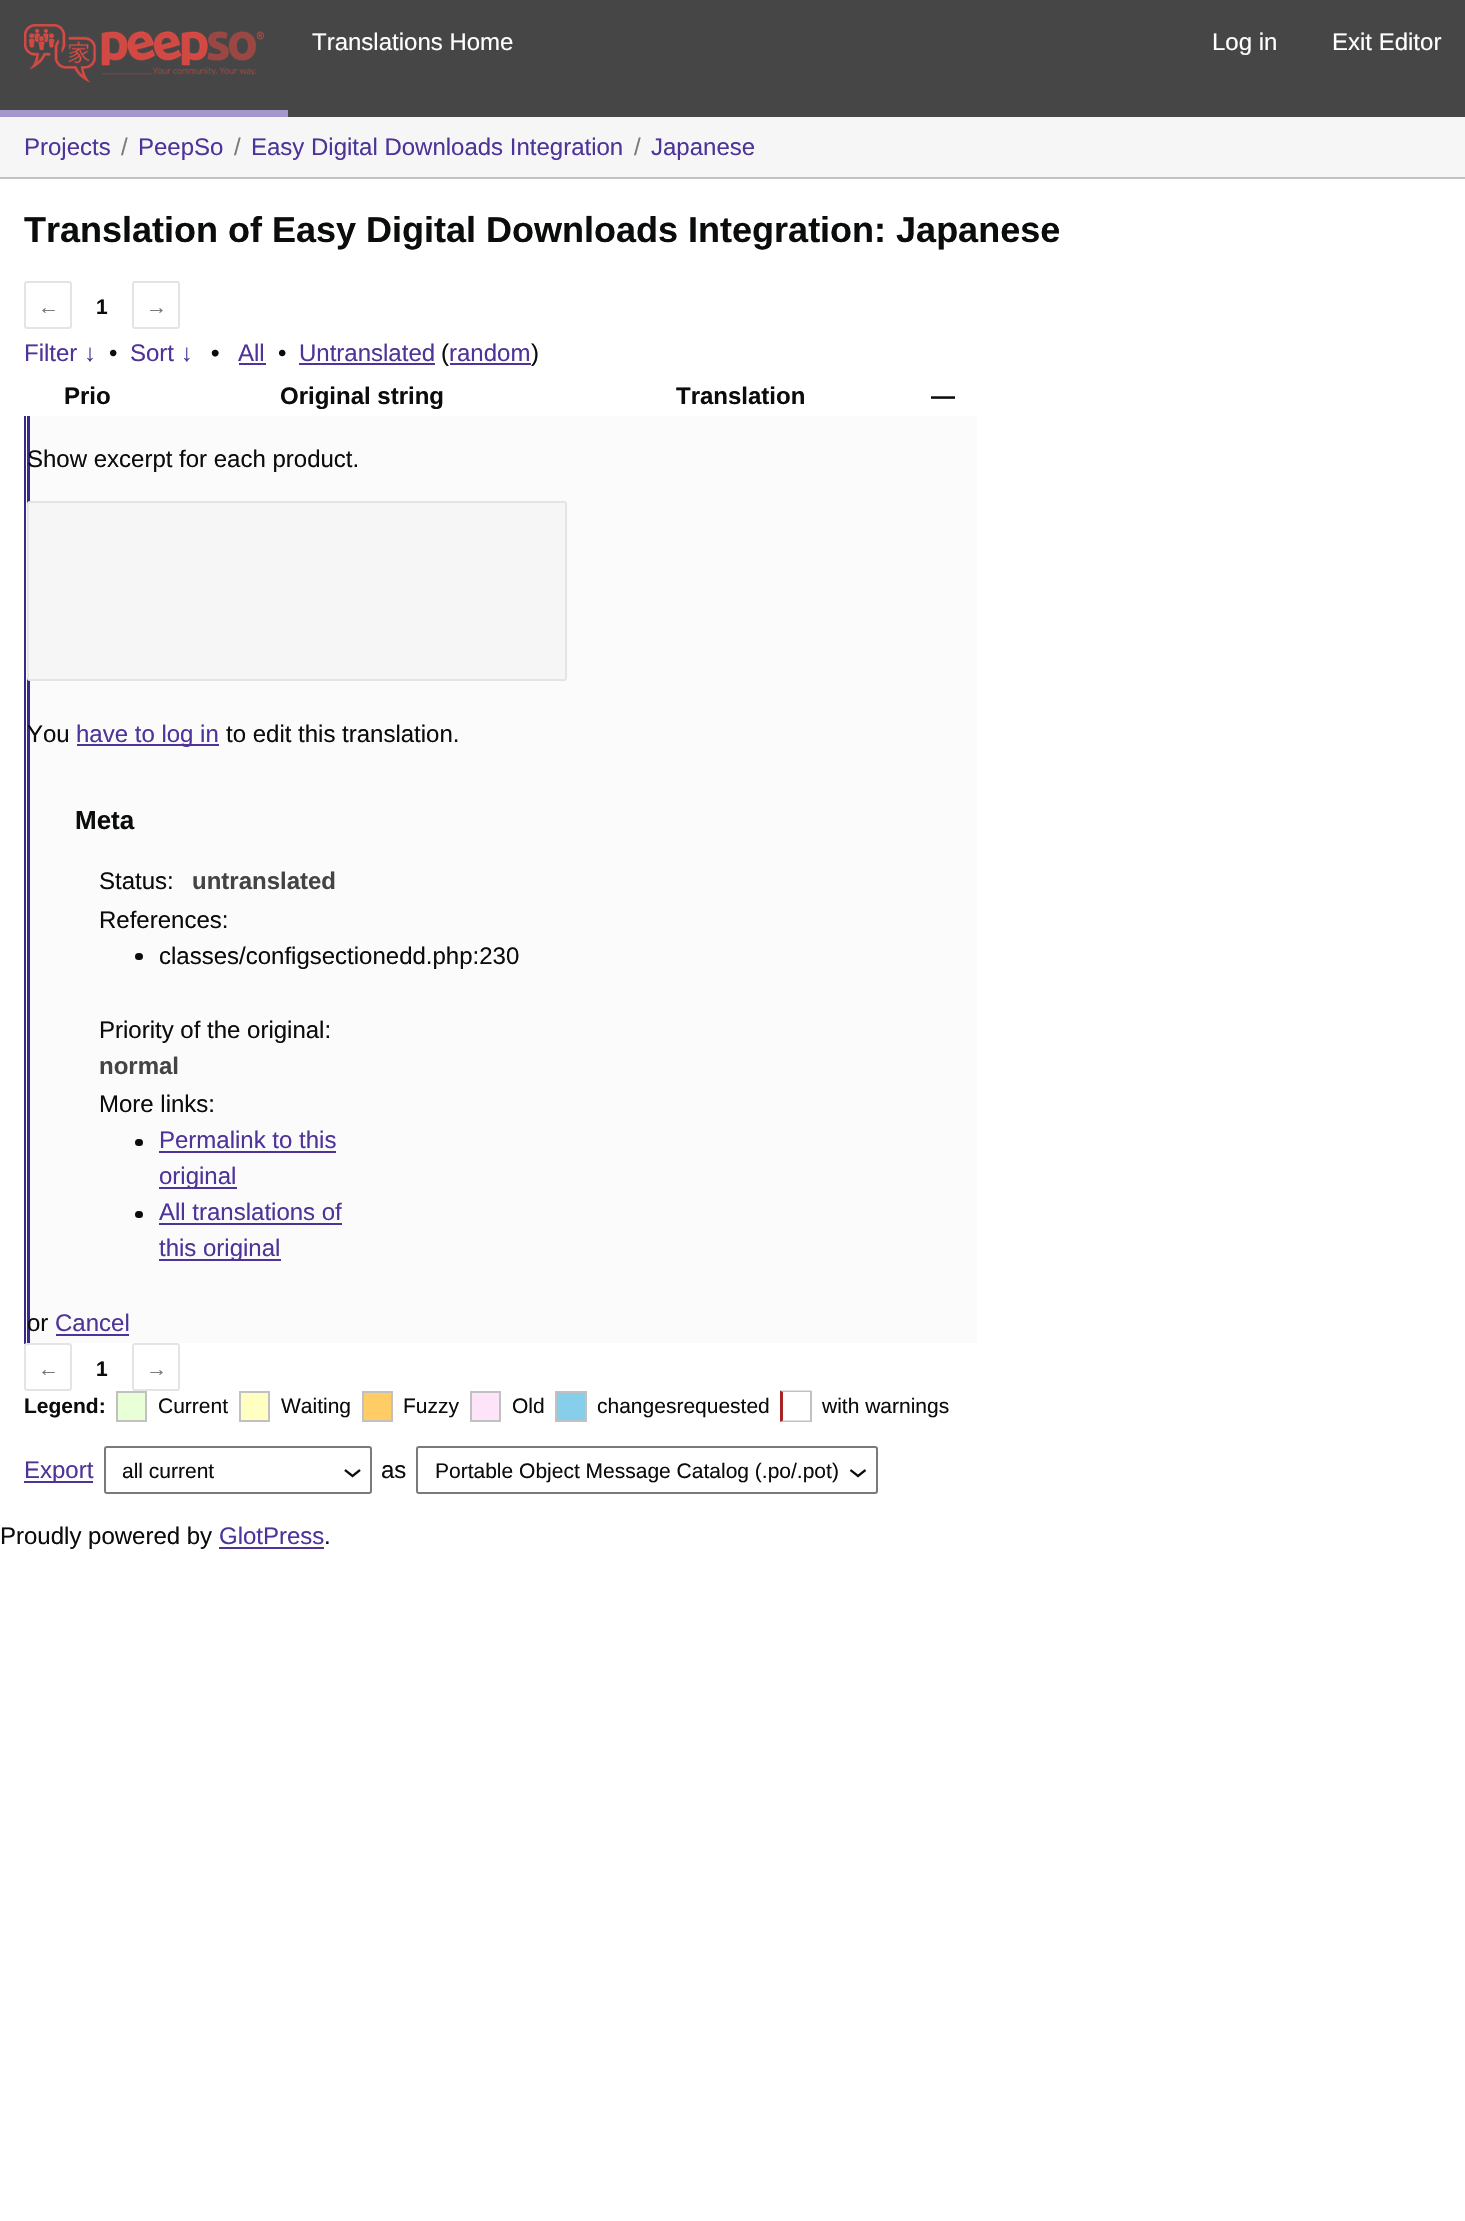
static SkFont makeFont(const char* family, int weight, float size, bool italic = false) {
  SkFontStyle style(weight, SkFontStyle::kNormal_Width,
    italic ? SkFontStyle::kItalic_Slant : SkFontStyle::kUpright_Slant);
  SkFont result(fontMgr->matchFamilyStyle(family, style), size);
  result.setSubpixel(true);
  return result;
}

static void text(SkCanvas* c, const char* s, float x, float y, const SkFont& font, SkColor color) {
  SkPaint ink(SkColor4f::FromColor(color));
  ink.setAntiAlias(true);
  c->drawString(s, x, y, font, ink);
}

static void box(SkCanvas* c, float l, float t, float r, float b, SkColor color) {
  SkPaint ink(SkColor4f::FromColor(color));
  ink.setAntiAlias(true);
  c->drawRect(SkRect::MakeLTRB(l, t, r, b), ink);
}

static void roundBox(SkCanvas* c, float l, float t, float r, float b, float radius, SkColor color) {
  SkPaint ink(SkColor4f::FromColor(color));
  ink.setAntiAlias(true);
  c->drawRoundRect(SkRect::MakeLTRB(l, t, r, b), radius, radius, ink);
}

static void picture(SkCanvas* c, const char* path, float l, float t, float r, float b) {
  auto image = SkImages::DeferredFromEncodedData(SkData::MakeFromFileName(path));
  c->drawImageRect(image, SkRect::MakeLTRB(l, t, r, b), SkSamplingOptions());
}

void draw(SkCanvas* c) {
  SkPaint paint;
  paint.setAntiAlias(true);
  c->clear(0xffffffff);
  box(c, 0, 0, 1465, 117, 0xff464646);
  box(c, 0, 110, 288, 117, 0xffa597c9);
  picture(c, "img_01.png", 24, 24, 264, 83);
  SkFont face1 = makeFont("Liberation Sans", 400, 24);
  text(c, "Translations Home", 312, 50, face1, 0xffffffff);
  text(c, "Log in", 1212, 50, face1, 0xffffffff);
  text(c, "Exit Editor", 1332, 50, face1, 0xffffffff);
  box(c, 0, 117, 1465, 177, 0xfff6f6f6);
  box(c, 0, 177, 1465, 179, 0xffc1c1c1);
  text(c, "Projects", 24, 155, face1, 0xff4e3499);
  text(c, "/", 121, 155, face1, 0xff7a7a7a);
  text(c, "PeepSo", 138, 155, face1, 0xff4e3499);
  text(c, "/", 234, 155, face1, 0xff7a7a7a);
  text(c, "Easy Digital Downloads Integration", 251, 155, face1, 0xff4e3499);
  text(c, "/", 634, 155, face1, 0xff7a7a7a);
  text(c, "Japanese", 651, 155, face1, 0xff4e3499);
  SkFont face2 = makeFont("Liberation Sans", 700, 36);
  text(c, "Translation of Easy Digital Downloads Integration: Japanese", 24, 242, face2, 0xff0b0c0c);
  paint.setStyle(SkPaint::kStroke_Style);
  paint.setStrokeWidth(2);
  paint.setColor(0xffe4e4e4);
  c->drawRoundRect(SkRect::MakeLTRB(25, 282, 71, 328), 2, 2, paint);
  SkFont face3 = makeFont("Liberation Sans", 400, 21);
  text(c, "←", 38, 314, face3, 0xff7a7a7a);
  SkFont face4 = makeFont("Liberation Sans", 700, 21);
  text(c, "1", 96, 314, face4, 0xff0b0c0c);
  c->drawRoundRect(SkRect::MakeLTRB(133, 282, 179, 328), 2, 2, paint);
  text(c, "→", 146, 314, face3, 0xff7a7a7a);
  text(c, "Filter ↓", 24, 361, face1, 0xff4e3499);
  text(c, "•", 109, 361, face1, 0xff0b0c0c);
  text(c, "Sort ↓", 130, 361, face1, 0xff4e3499);
  SkFont face5 = makeFont("Liberation Sans", 700, 24);
  text(c, "•", 211, 361, face5, 0xff0b0c0c);
  text(c, "All", 238, 361, face1, 0xff4e3499);
  box(c, 239, 363, 266, 365, 0xff4e3499);
  text(c, "•", 278, 361, face1, 0xff0b0c0c);
  text(c, "Untranslated", 299, 361, face1, 0xff4e3499);
  box(c, 299, 363, 435, 365, 0xff4e3499);
  text(c, "(", 441, 361, face1, 0xff0b0c0c);
  text(c, "random", 449, 361, face1, 0xff4e3499);
  box(c, 450, 363, 531, 365, 0xff4e3499);
  text(c, ")", 531, 361, face1, 0xff0b0c0c);
  text(c, "Prio", 64, 404, face5, 0xff0b0c0c);
  text(c, "Original string", 280, 404, face5, 0xff0b0c0c);
  text(c, "Translation", 676, 404, face5, 0xff0b0c0c);
  text(c, "—", 931, 404, face5, 0xff0b0c0c);
  box(c, 26, 416, 977, 1343, 0xfffbfbfb);
  box(c, 27, 416, 30, 1343, 0xff39298b);
  box(c, 24, 416, 26, 1344, 0xff39298b);
  text(c, "Show excerpt for each product.", 27, 467, face1, 0xff0b0c0c);
  paint.setStyle(SkPaint::kFill_Style);
  paint.setColor(0xfff6f6f6);
  c->drawRoundRect(SkRect::MakeLTRB(28, 502, 566, 680), 2, 2, paint);
  paint.setStyle(SkPaint::kStroke_Style);
  paint.setColor(0xffe4e4e4);
  c->drawRoundRect(SkRect::MakeLTRB(28, 502, 566, 680), 2, 2, paint);
  text(c, "You", 27, 742, face1, 0xff0b0c0c);
  box(c, 77, 744, 219, 746, 0xff4e3499);
  text(c, "have to log in", 76, 742, face1, 0xff4e3499);
  text(c, "to edit this translation.", 226, 742, face1, 0xff0b0c0c);
  SkFont face6 = makeFont("Liberation Sans", 700, 26);
  text(c, "Meta", 75, 829, face6, 0xff0b0c0c);
  text(c, "Status:", 99, 889, face1, 0xff0b0c0c);
  text(c, "untranslated", 192, 889, face5, 0xff444444);
  text(c, "References:", 99, 928, face1, 0xff0b0c0c);
  roundBox(c, 135, 953, 143, 960, 3.5f, 0xff0b0c0c);
  text(c, "classes/configsectionedd.php:230", 159, 964, face1, 0xff0b0c0c);
  text(c, "Priority of the original:", 99, 1038, face1, 0xff0b0c0c);
  text(c, "normal", 99, 1074, face5, 0xff444444);
  text(c, "More links:", 99, 1112, face1, 0xff0b0c0c);
  roundBox(c, 135, 1139, 143, 1146, 3.5f, 0xff0b0c0c);
  text(c, "Permalink to this", 159, 1148, face1, 0xff4e3499);
  box(c, 159, 1151, 336, 1153, 0xff4e3499);
  box(c, 159, 1187, 237, 1189, 0xff4e3499);
  text(c, "original", 159, 1184, face1, 0xff4e3499);
  roundBox(c, 135, 1211, 143, 1218, 3.5f, 0xff0b0c0c);
  text(c, "All translations of", 159, 1220, face1, 0xff4e3499);
  box(c, 159, 1223, 342, 1225, 0xff4e3499);
  box(c, 159, 1259, 281, 1261, 0xff4e3499);
  text(c, "this original", 159, 1256, face1, 0xff4e3499);
  text(c, "or", 27, 1331, face1, 0xff0b0c0c);
  text(c, "Cancel", 55, 1331, face1, 0xff4e3499);
  box(c, 56, 1334, 129, 1336, 0xff4e3499);
  c->drawRoundRect(SkRect::MakeLTRB(25, 1344, 71, 1390), 2, 2, paint);
  text(c, "←", 38, 1376, face3, 0xff7a7a7a);
  text(c, "1", 96, 1376, face4, 0xff0b0c0c);
  c->drawRoundRect(SkRect::MakeLTRB(133, 1344, 179, 1390), 2, 2, paint);
  text(c, "→", 146, 1376, face3, 0xff7a7a7a);
  text(c, "Legend:", 24, 1413, face4, 0xff0b0c0c);
  paint.setStyle(SkPaint::kFill_Style);
  paint.setColor(0xffe9ffd8);
  c->drawRect(SkRect::MakeLTRB(117, 1392, 146, 1421), paint);
  paint.setStyle(SkPaint::kStroke_Style);
  paint.setColor(0xffc1c1c1);
  c->drawRect(SkRect::MakeLTRB(117, 1392, 146, 1421), paint);
  text(c, "Current", 158, 1413, face3, 0xff0b0c0c);
  paint.setStyle(SkPaint::kFill_Style);
  paint.setColor(0xffffffc2);
  c->drawRect(SkRect::MakeLTRB(240, 1392, 269, 1421), paint);
  paint.setStyle(SkPaint::kStroke_Style);
  paint.setColor(0xffc1c1c1);
  c->drawRect(SkRect::MakeLTRB(240, 1392, 269, 1421), paint);
  text(c, "Waiting", 281, 1413, face3, 0xff0b0c0c);
  paint.setStyle(SkPaint::kFill_Style);
  paint.setColor(0xffffcc66);
  c->drawRect(SkRect::MakeLTRB(363, 1392, 392, 1421), paint);
  paint.setStyle(SkPaint::kStroke_Style);
  paint.setColor(0xffc1c1c1);
  c->drawRect(SkRect::MakeLTRB(363, 1392, 392, 1421), paint);
  text(c, "Fuzzy", 403, 1413, face3, 0xff0b0c0c);
  paint.setStyle(SkPaint::kFill_Style);
  paint.setColor(0xfffee4f8);
  c->drawRect(SkRect::MakeLTRB(471, 1392, 500, 1421), paint);
  paint.setStyle(SkPaint::kStroke_Style);
  paint.setColor(0xffc1c1c1);
  c->drawRect(SkRect::MakeLTRB(471, 1392, 500, 1421), paint);
  text(c, "Old", 512, 1413, face3, 0xff0b0c0c);
  paint.setStyle(SkPaint::kFill_Style);
  paint.setColor(0xff87ceeb);
  c->drawRect(SkRect::MakeLTRB(556, 1392, 586, 1421), paint);
  paint.setStyle(SkPaint::kStroke_Style);
  paint.setColor(0xffc1c1c1);
  c->drawRect(SkRect::MakeLTRB(556, 1392, 586, 1421), paint);
  text(c, "changesrequested", 597, 1413, face3, 0xff0b0c0c);
  paint.setStyle(SkPaint::kFill_Style);
  c->drawPath(SkPathBuilder().moveTo(780, 1390.5f).lineTo(811.5f, 1390.5f).lineTo(810, 1392).lineTo(783, 1392).close().detach(), paint);
  box(c, 810, 1391, 812, 1422, 0xffc1c1c1);
  c->drawPath(SkPathBuilder().moveTo(811.5f, 1422).lineTo(780, 1422).lineTo(783, 1420.5f).lineTo(810, 1420.5f).close().detach(), paint);
  paint.setColor(0xffa62626);
  c->drawPath(SkPathBuilder().moveTo(780, 1422).lineTo(780, 1390.5f).lineTo(783, 1392).lineTo(783, 1420.5f).close().detach(), paint);
  text(c, "with warnings", 822, 1413, face3, 0xff0b0c0c);
  box(c, 24, 1481, 93, 1483, 0xff4e3499);
  text(c, "Export", 24, 1478, face1, 0xff4e3499);
  picture(c, "img_02.png", 344, 1469, 361, 1478);
  paint.setStyle(SkPaint::kStroke_Style);
  paint.setColor(0xff7a7a7a);
  c->drawRoundRect(SkRect::MakeLTRB(105, 1447, 371, 1493), 2, 2, paint);
  text(c, "all current", 122, 1478, face3, 0xff0b0c0c);
  text(c, "as", 381, 1478, face1, 0xff0b0c0c);
  picture(c, "img_03.png", 849, 1469, 867, 1478);
  c->drawRoundRect(SkRect::MakeLTRB(417, 1447, 877, 1493), 2, 2, paint);
  text(c, "Portable Object Message Catalog (.po/.pot)", 435, 1478, face3, 0xff0b0c0c);
  text(c, "Proudly powered by", 0, 1544, face1, 0xff0b0c0c);
  text(c, "GlotPress", 219, 1544, face1, 0xff4e3499);
  box(c, 219, 1547, 324, 1549, 0xff4e3499);
  text(c, ".", 324, 1544, face1, 0xff0b0c0c);
}
